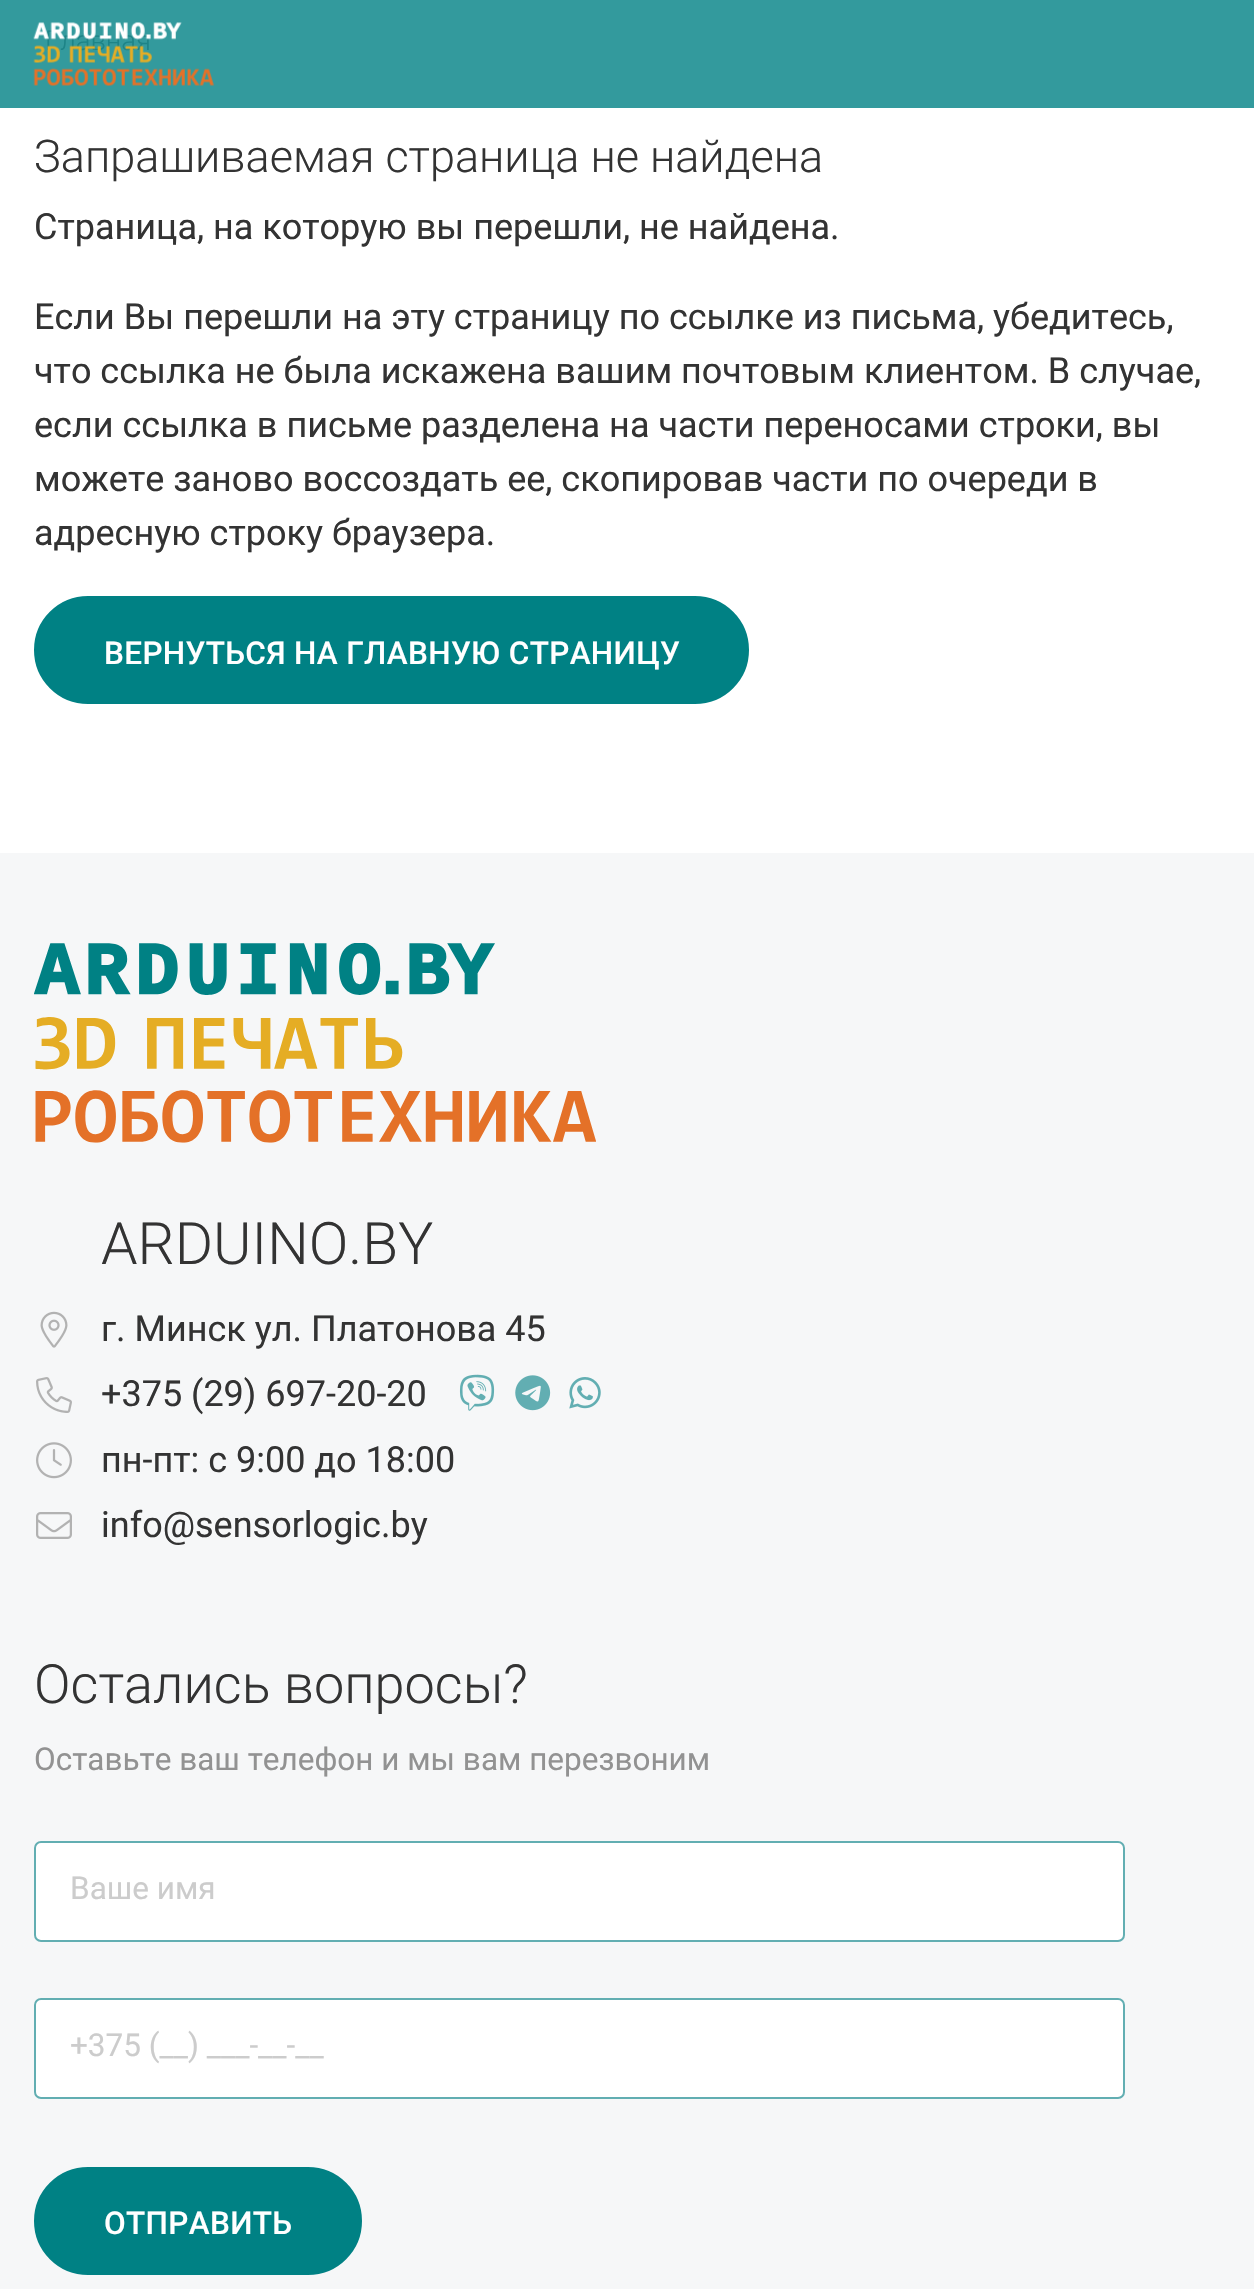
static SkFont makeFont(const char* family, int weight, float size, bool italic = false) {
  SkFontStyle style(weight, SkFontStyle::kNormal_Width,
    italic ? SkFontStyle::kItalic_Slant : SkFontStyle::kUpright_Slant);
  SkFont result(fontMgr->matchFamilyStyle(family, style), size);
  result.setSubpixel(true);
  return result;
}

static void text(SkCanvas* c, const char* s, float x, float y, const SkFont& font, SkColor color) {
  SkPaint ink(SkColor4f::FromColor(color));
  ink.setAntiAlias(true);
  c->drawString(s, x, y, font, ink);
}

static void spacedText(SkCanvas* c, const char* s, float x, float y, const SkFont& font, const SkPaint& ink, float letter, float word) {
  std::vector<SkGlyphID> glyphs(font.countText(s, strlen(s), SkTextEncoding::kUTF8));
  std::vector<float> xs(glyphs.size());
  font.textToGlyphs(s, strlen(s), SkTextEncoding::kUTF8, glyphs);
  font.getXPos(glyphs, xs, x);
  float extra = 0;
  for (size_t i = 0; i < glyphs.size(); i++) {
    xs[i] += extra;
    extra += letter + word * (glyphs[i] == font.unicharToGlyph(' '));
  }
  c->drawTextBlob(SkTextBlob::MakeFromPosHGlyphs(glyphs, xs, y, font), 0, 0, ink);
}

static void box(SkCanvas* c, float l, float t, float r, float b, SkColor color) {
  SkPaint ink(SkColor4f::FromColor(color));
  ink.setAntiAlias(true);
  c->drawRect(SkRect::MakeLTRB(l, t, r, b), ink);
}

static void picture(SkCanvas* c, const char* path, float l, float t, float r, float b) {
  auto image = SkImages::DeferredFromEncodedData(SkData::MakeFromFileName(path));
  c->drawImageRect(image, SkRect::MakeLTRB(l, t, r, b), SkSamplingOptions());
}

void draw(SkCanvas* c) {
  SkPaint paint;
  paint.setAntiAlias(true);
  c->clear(0xffffffff);
  box(c, 0, 0, 1254, 108, 0xff339a9d);
  SkFont face1 = makeFont("Roboto", 300, 27.5f);
  text(c, "Главная", 45, 50, face1, 0xff1d8487);
  picture(c, "img_01.png", 33, 22, 214, 86);
  SkFont face2 = makeFont("Roboto", 300, 45);
  text(c, "Запрашиваемая страница не найдена", 34, 172, face2, 0xff333333);
  SkFont face3 = makeFont("Roboto", 400, 36);
  text(c, "Страница, на которую вы перешли, не найдена.", 34, 239, face3, 0xff333333);
  text(c, "Если Вы перешли на эту страницу по ссылке из письма, убедитесь,", 34, 329, face3, 0xff333333);
  text(c, "что ссылка не была искажена вашим почтовым клиентом. В случае,", 34, 383, face3, 0xff333333);
  text(c, "если ссылка в письме разделена на части переносами строки, вы", 34, 437, face3, 0xff333333);
  text(c, "можете заново воссоздать ее, скопировав части по очереди в", 34, 491, face3, 0xff333333);
  text(c, "адресную строку браузера.", 34, 545, face3, 0xff333333);
  paint.setColor(0xff008184);
  c->drawRoundRect(SkRect::MakeLTRB(35, 597, 748, 703), 53, 53, paint);
  paint.setStyle(SkPaint::kStroke_Style);
  paint.setStrokeWidth(2);
  c->drawRoundRect(SkRect::MakeLTRB(35, 597, 748, 703), 53, 53, paint);
  SkFont face4 = makeFont("Roboto", 500, 31.5f);
  paint.setStyle(SkPaint::kFill_Style);
  paint.setColor(0xffffffff);
  spacedText(c, "ВЕРНУТЬСЯ НА ГЛАВНУЮ СТРАНИЦУ", 104, 664, face4, paint, 0.35f, 0);
  box(c, 0, 853, 1254, 2289, 0xfff6f7f8);
  picture(c, "img_02.png", 34, 943, 596, 1143);
  SkFont face5 = makeFont("Roboto", 300, 58.5f);
  text(c, "ARDUINO.BY", 101, 1264, face5, 0xff333333);
  picture(c, "img_03.png", 40, 1311, 68, 1348);
  text(c, "г. Минск ул. Платонова 45", 101, 1341, face3, 0xff333333);
  picture(c, "img_04.png", 36, 1377, 72, 1413);
  text(c, "+375 (29) 697-20-20", 101, 1406, face3, 0xff333333);
  picture(c, "img_05.png", 459, 1374, 495, 1411);
  picture(c, "img_06.png", 515, 1375, 551, 1411);
  picture(c, "img_07.png", 569, 1377, 601, 1409);
  picture(c, "img_08.png", 36, 1442, 72, 1479);
  text(c, "пн-пт: c 9:00 до 18:00", 101, 1472, face3, 0xff333333);
  picture(c, "img_09.png", 36, 1512, 72, 1539);
  text(c, "info@sensorlogic.by", 101, 1537, face3, 0xff333333);
  SkFont face6 = makeFont("Roboto", 300, 54);
  text(c, "Остались вопросы?", 34, 1703, face6, 0xff333333);
  SkFont face7 = makeFont("Roboto", 400, 31.5f);
  text(c, "Оставьте ваш телефон и мы вам перезвоним", 34, 1770, face7, 0xff929292);
  c->drawRoundRect(SkRect::MakeLTRB(35, 1842, 1124, 1941), 6, 6, paint);
  paint.setStyle(SkPaint::kStroke_Style);
  paint.setColor(0xff62aeb2);
  c->drawRoundRect(SkRect::MakeLTRB(35, 1842, 1124, 1941), 6, 6, paint);
  text(c, "Ваше имя", 70, 1899, face7, 0xffcccccc);
  paint.setStyle(SkPaint::kFill_Style);
  paint.setColor(0xffffffff);
  c->drawRoundRect(SkRect::MakeLTRB(35, 1999, 1124, 2098), 6, 6, paint);
  paint.setStyle(SkPaint::kStroke_Style);
  paint.setColor(0xff62aeb2);
  c->drawRoundRect(SkRect::MakeLTRB(35, 1999, 1124, 2098), 6, 6, paint);
  text(c, "+375 (__) ___-__-__", 70, 2056, face7, 0xffcccccc);
  paint.setStyle(SkPaint::kFill_Style);
  paint.setColor(0xff008184);
  c->drawRoundRect(SkRect::MakeLTRB(35, 2168, 361, 2274), 53, 53, paint);
  paint.setStyle(SkPaint::kStroke_Style);
  c->drawRoundRect(SkRect::MakeLTRB(35, 2168, 361, 2274), 53, 53, paint);
  paint.setStyle(SkPaint::kFill_Style);
  paint.setColor(0xffffffff);
  spacedText(c, "ОТПРАВИТЬ", 104, 2234, face4, paint, 0.35f, 0);
}
